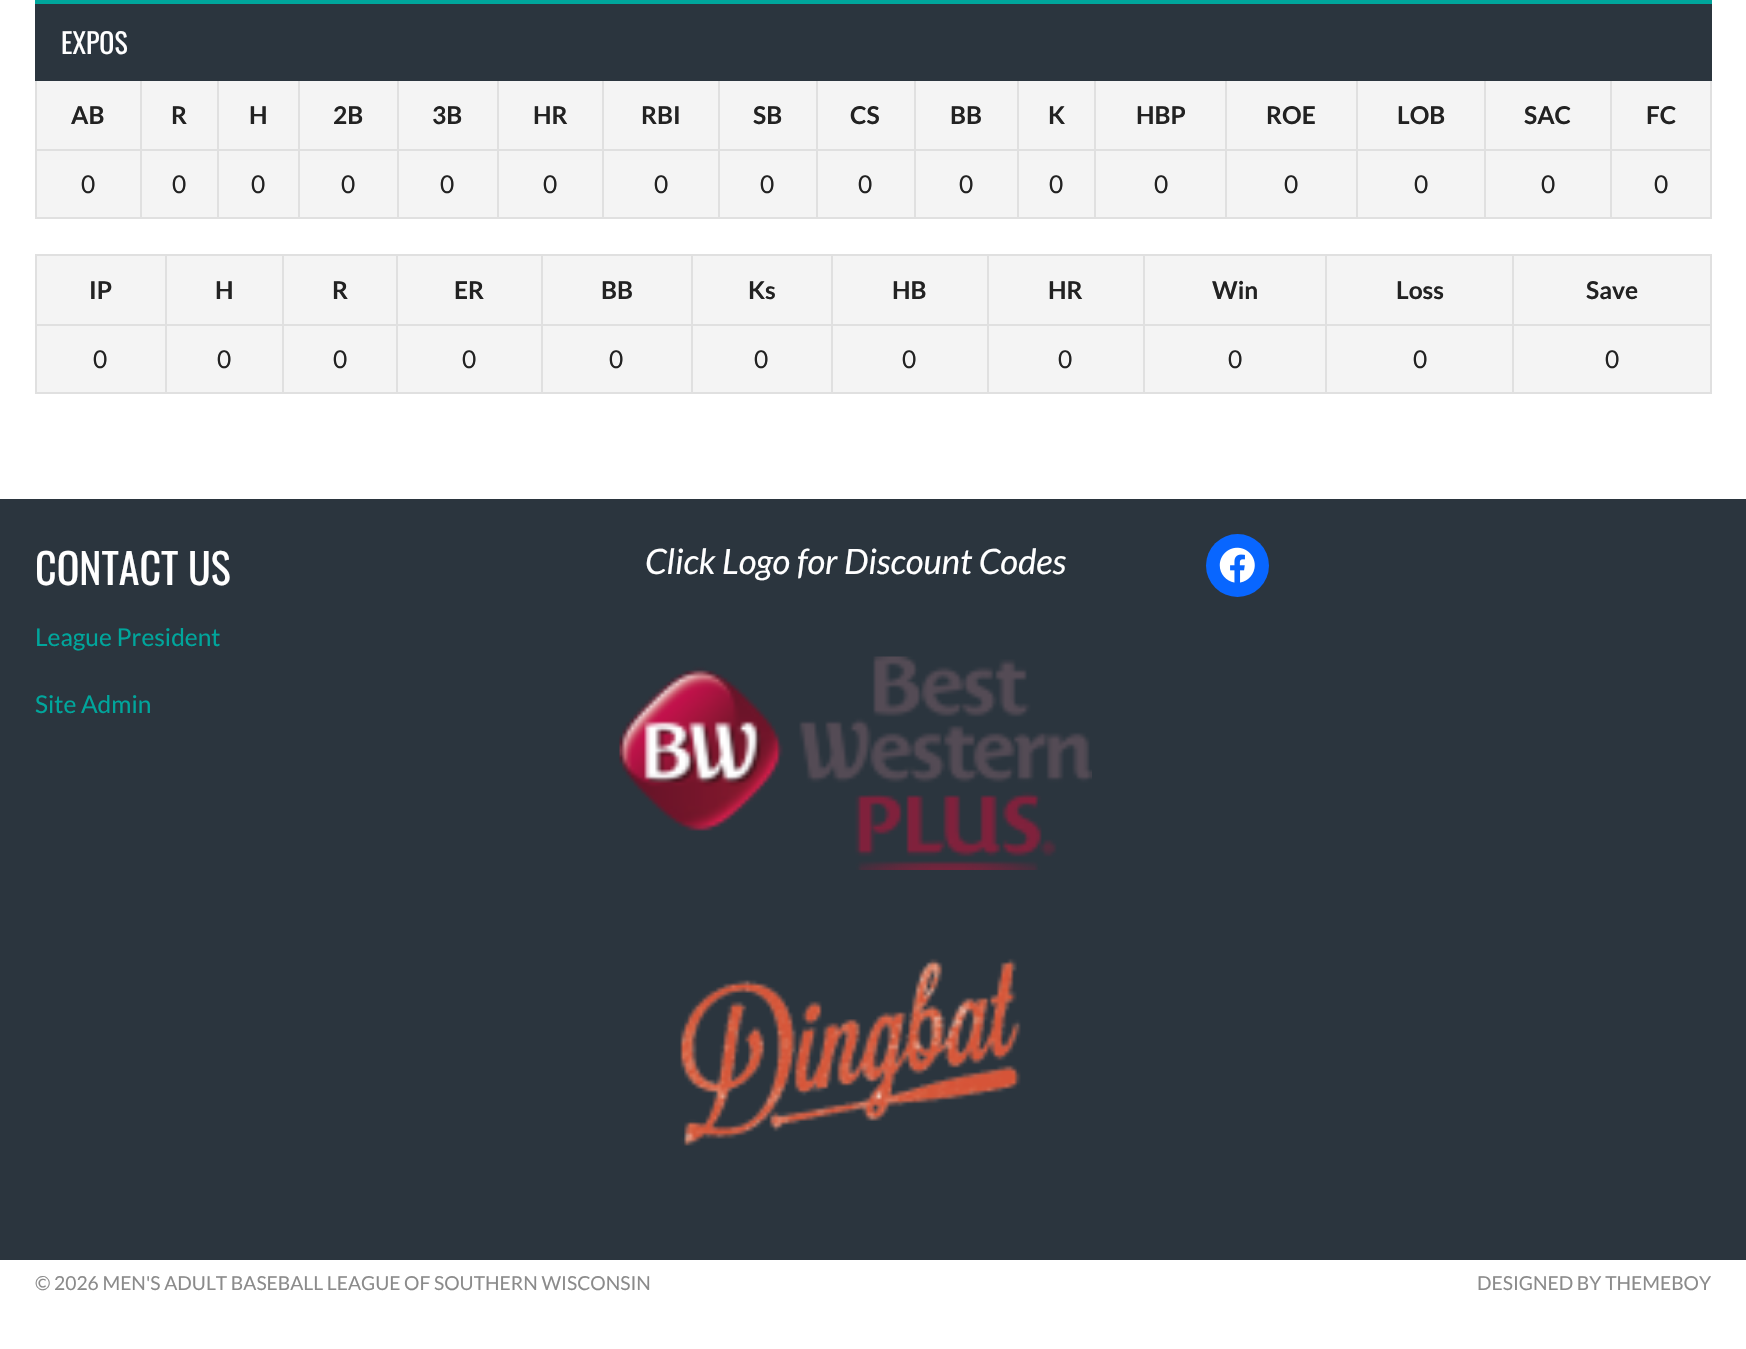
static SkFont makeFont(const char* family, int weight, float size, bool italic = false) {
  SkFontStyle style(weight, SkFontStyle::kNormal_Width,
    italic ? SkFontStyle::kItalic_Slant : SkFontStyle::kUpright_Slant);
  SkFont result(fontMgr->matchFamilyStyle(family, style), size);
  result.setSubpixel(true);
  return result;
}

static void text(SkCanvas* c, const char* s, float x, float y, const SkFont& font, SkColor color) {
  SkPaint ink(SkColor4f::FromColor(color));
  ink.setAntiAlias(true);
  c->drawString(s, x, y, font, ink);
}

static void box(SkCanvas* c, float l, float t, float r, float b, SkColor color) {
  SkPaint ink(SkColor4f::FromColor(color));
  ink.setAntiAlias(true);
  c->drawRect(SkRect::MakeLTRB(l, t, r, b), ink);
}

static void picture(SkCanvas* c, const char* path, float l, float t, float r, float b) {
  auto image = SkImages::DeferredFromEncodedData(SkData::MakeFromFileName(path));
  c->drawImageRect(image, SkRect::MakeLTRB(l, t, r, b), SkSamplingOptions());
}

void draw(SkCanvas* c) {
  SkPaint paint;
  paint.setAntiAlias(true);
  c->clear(0xffffffff);
  box(c, 1710, 79, 1712, 219, 0xffe0e0e0);
  box(c, 35, 217, 1712, 219, 0xffe0e0e0);
  box(c, 35, 79, 37, 219, 0xffe0e0e0);
  box(c, 37, 81, 1710, 217, 0xfff4f4f4);
  box(c, 1610, 149, 1712, 151, 0xffe0e0e0);
  box(c, 1610, 149, 1612, 219, 0xffe0e0e0);
  box(c, 1484, 149, 1612, 151, 0xffe0e0e0);
  box(c, 1484, 149, 1486, 219, 0xffe0e0e0);
  box(c, 1356, 149, 1486, 151, 0xffe0e0e0);
  box(c, 1356, 149, 1358, 219, 0xffe0e0e0);
  box(c, 1225, 149, 1358, 151, 0xffe0e0e0);
  box(c, 1225, 149, 1227, 219, 0xffe0e0e0);
  box(c, 1094, 149, 1227, 151, 0xffe0e0e0);
  box(c, 1094, 149, 1096, 219, 0xffe0e0e0);
  box(c, 1017, 149, 1096, 151, 0xffe0e0e0);
  box(c, 1017, 149, 1019, 219, 0xffe0e0e0);
  box(c, 914, 149, 1019, 151, 0xffe0e0e0);
  box(c, 914, 149, 916, 219, 0xffe0e0e0);
  box(c, 816, 149, 915, 151, 0xffe0e0e0);
  box(c, 816, 149, 818, 219, 0xffe0e0e0);
  box(c, 718, 149, 817, 151, 0xffe0e0e0);
  box(c, 718, 149, 720, 219, 0xffe0e0e0);
  box(c, 602, 149, 719, 151, 0xffe0e0e0);
  box(c, 602, 149, 604, 219, 0xffe0e0e0);
  box(c, 497, 149, 604, 151, 0xffe0e0e0);
  box(c, 497, 149, 499, 219, 0xffe0e0e0);
  box(c, 397, 149, 499, 151, 0xffe0e0e0);
  box(c, 397, 149, 399, 219, 0xffe0e0e0);
  box(c, 298, 149, 399, 151, 0xffe0e0e0);
  box(c, 298, 149, 300, 219, 0xffe0e0e0);
  box(c, 217, 149, 299, 151, 0xffe0e0e0);
  box(c, 217, 149, 219, 219, 0xffe0e0e0);
  box(c, 140, 149, 219, 151, 0xffe0e0e0);
  box(c, 140, 149, 142, 219, 0xffe0e0e0);
  box(c, 35, 149, 142, 151, 0xffe0e0e0);
  box(c, 140, 79, 142, 151, 0xffe0e0e0);
  box(c, 217, 79, 219, 151, 0xffe0e0e0);
  box(c, 298, 79, 300, 151, 0xffe0e0e0);
  box(c, 397, 79, 399, 151, 0xffe0e0e0);
  box(c, 497, 79, 499, 151, 0xffe0e0e0);
  box(c, 602, 79, 604, 151, 0xffe0e0e0);
  box(c, 718, 79, 720, 151, 0xffe0e0e0);
  box(c, 816, 79, 818, 151, 0xffe0e0e0);
  box(c, 914, 79, 916, 151, 0xffe0e0e0);
  box(c, 1017, 79, 1019, 151, 0xffe0e0e0);
  box(c, 1094, 79, 1096, 151, 0xffe0e0e0);
  box(c, 1225, 79, 1227, 151, 0xffe0e0e0);
  box(c, 1356, 79, 1358, 151, 0xffe0e0e0);
  box(c, 1484, 79, 1486, 151, 0xffe0e0e0);
  box(c, 1610, 79, 1612, 151, 0xffe0e0e0);
  box(c, 35, 4, 1712, 81, 0xff2b353e);
  box(c, 35, 0, 1712, 4, 0xff00a69c);
  SkFont face1 = makeFont("Oswald", 400, 28);
  text(c, "EXPOS", 61, 54, face1, 0xffffffff);
  SkFont face2 = makeFont("Lato", 700, 24.5f);
  text(c, "AB", 71, 124, face2, 0xff222222);
  text(c, "R", 171, 124, face2, 0xff222222);
  text(c, "H", 249, 124, face2, 0xff222222);
  text(c, "2B", 333, 124, face2, 0xff222222);
  text(c, "3B", 432, 124, face2, 0xff222222);
  text(c, "HR", 533, 124, face2, 0xff222222);
  text(c, "RBI", 641, 124, face2, 0xff222222);
  text(c, "SB", 753, 124, face2, 0xff222222);
  text(c, "CS", 850, 124, face2, 0xff222222);
  text(c, "BB", 950, 124, face2, 0xff222222);
  text(c, "K", 1048, 124, face2, 0xff222222);
  text(c, "HBP", 1136, 124, face2, 0xff222222);
  text(c, "ROE", 1266, 124, face2, 0xff222222);
  text(c, "LOB", 1397, 124, face2, 0xff222222);
  text(c, "SAC", 1524, 124, face2, 0xff222222);
  text(c, "FC", 1646, 124, face2, 0xff222222);
  SkFont face3 = makeFont("Lato", 400, 24.5f);
  text(c, "0", 81, 193, face3, 0xff222222);
  text(c, "0", 172, 193, face3, 0xff222222);
  text(c, "0", 251, 193, face3, 0xff222222);
  text(c, "0", 341, 193, face3, 0xff222222);
  text(c, "0", 440, 193, face3, 0xff222222);
  text(c, "0", 543, 193, face3, 0xff222222);
  text(c, "0", 654, 193, face3, 0xff222222);
  text(c, "0", 760, 193, face3, 0xff222222);
  text(c, "0", 858, 193, face3, 0xff222222);
  text(c, "0", 959, 193, face3, 0xff222222);
  text(c, "0", 1049, 193, face3, 0xff222222);
  text(c, "0", 1154, 193, face3, 0xff222222);
  text(c, "0", 1284, 193, face3, 0xff222222);
  text(c, "0", 1414, 193, face3, 0xff222222);
  text(c, "0", 1541, 193, face3, 0xff222222);
  text(c, "0", 1654, 193, face3, 0xff222222);
  box(c, 37, 256, 1710, 392, 0xfff4f4f4);
  box(c, 35, 254, 1712, 256, 0xffe0e0e0);
  box(c, 1710, 254, 1712, 394, 0xffe0e0e0);
  box(c, 35, 392, 1712, 394, 0xffe0e0e0);
  box(c, 35, 254, 37, 394, 0xffe0e0e0);
  text(c, "IP", 89, 299, face2, 0xff222222);
  box(c, 1512, 324, 1712, 326, 0xffe0e0e0);
  box(c, 1512, 324, 1514, 394, 0xffe0e0e0);
  box(c, 1325, 324, 1514, 326, 0xffe0e0e0);
  box(c, 1325, 324, 1327, 394, 0xffe0e0e0);
  box(c, 1143, 324, 1327, 326, 0xffe0e0e0);
  box(c, 1143, 324, 1145, 394, 0xffe0e0e0);
  box(c, 987, 324, 1145, 326, 0xffe0e0e0);
  box(c, 987, 324, 989, 394, 0xffe0e0e0);
  box(c, 831, 324, 989, 326, 0xffe0e0e0);
  box(c, 831, 324, 833, 394, 0xffe0e0e0);
  box(c, 691, 324, 833, 326, 0xffe0e0e0);
  box(c, 691, 324, 693, 394, 0xffe0e0e0);
  box(c, 541, 324, 693, 326, 0xffe0e0e0);
  box(c, 541, 324, 543, 394, 0xffe0e0e0);
  box(c, 396, 324, 543, 326, 0xffe0e0e0);
  box(c, 396, 324, 398, 394, 0xffe0e0e0);
  box(c, 282, 324, 397, 326, 0xffe0e0e0);
  box(c, 282, 324, 284, 394, 0xffe0e0e0);
  box(c, 165, 324, 284, 326, 0xffe0e0e0);
  box(c, 165, 324, 167, 394, 0xffe0e0e0);
  box(c, 35, 324, 166, 326, 0xffe0e0e0);
  box(c, 165, 254, 167, 326, 0xffe0e0e0);
  text(c, "H", 215, 299, face2, 0xff222222);
  box(c, 282, 254, 284, 326, 0xffe0e0e0);
  text(c, "R", 332, 299, face2, 0xff222222);
  box(c, 396, 254, 398, 326, 0xffe0e0e0);
  text(c, "ER", 454, 299, face2, 0xff222222);
  box(c, 541, 254, 543, 326, 0xffe0e0e0);
  text(c, "BB", 601, 299, face2, 0xff222222);
  box(c, 691, 254, 693, 326, 0xffe0e0e0);
  text(c, "Ks", 748, 299, face2, 0xff222222);
  box(c, 831, 254, 833, 326, 0xffe0e0e0);
  text(c, "HB", 892, 299, face2, 0xff222222);
  box(c, 987, 254, 989, 326, 0xffe0e0e0);
  text(c, "HR", 1048, 299, face2, 0xff222222);
  box(c, 1143, 254, 1145, 326, 0xffe0e0e0);
  text(c, "Win", 1212, 299, face2, 0xff222222);
  paint.setColor(0xfff4f4f4);
  c->drawPath(SkPathBuilder().moveTo(1266.5f, 285).lineTo(1254, 285).lineTo(1260.5f, 293.5f).close().moveTo(1264, 293.5f).lineTo(1276.5f, 293.5f).lineTo(1270, 285).close().detach(), paint);
  box(c, 1325, 254, 1327, 326, 0xffe0e0e0);
  text(c, "Loss", 1396, 299, face2, 0xff222222);
  box(c, 1512, 254, 1514, 326, 0xffe0e0e0);
  text(c, "Save", 1586, 299, face2, 0xff222222);
  text(c, "0", 93, 368, face3, 0xff222222);
  text(c, "0", 217, 368, face3, 0xff222222);
  text(c, "0", 333, 368, face3, 0xff222222);
  text(c, "0", 462, 368, face3, 0xff222222);
  text(c, "0", 609, 368, face3, 0xff222222);
  text(c, "0", 754, 368, face3, 0xff222222);
  text(c, "0", 902, 368, face3, 0xff222222);
  text(c, "0", 1058, 368, face3, 0xff222222);
  text(c, "0", 1228, 368, face3, 0xff222222);
  text(c, "0", 1413, 368, face3, 0xff222222);
  text(c, "0", 1605, 368, face3, 0xff222222);
  box(c, 0, 499, 1746, 1260, 0xff2b353e);
  SkFont face4 = makeFont("Oswald", 400, 42);
  text(c, "CONTACT US", 35, 585, face4, 0xffffffff);
  text(c, "League President", 35, 646, face3, 0xff00a69c);
  text(c, "Site Admin", 35, 713, face3, 0xff00a69c);
  SkFont face5 = makeFont("Lato", 400, 35, true);
  text(c, "Click Logo for Discount Codes", 645, 574, face5, 0xffffffff);
  picture(c, "img_01.png", 619, 656, 1092, 870);
  picture(c, "img_02.png", 680, 958, 1021, 1146);
  paint.setColor(0xff0866ff);
  c->drawCircle(1237.5f, 565.5f, 31.5f, paint);
  picture(c, "img_03.png", 1219, 547, 1255, 583);
  SkFont face6 = makeFont("Lato", 400, 19.25f);
  text(c, "© 2026 MEN'S ADULT BASEBALL LEAGUE OF SOUTHERN WISCONSIN", 35, 1290, face6, 0xff8b8b8b);
  text(c, "DESIGNED BY THEMEBOY", 1477, 1290, face6, 0xff8b8b8b);
}
